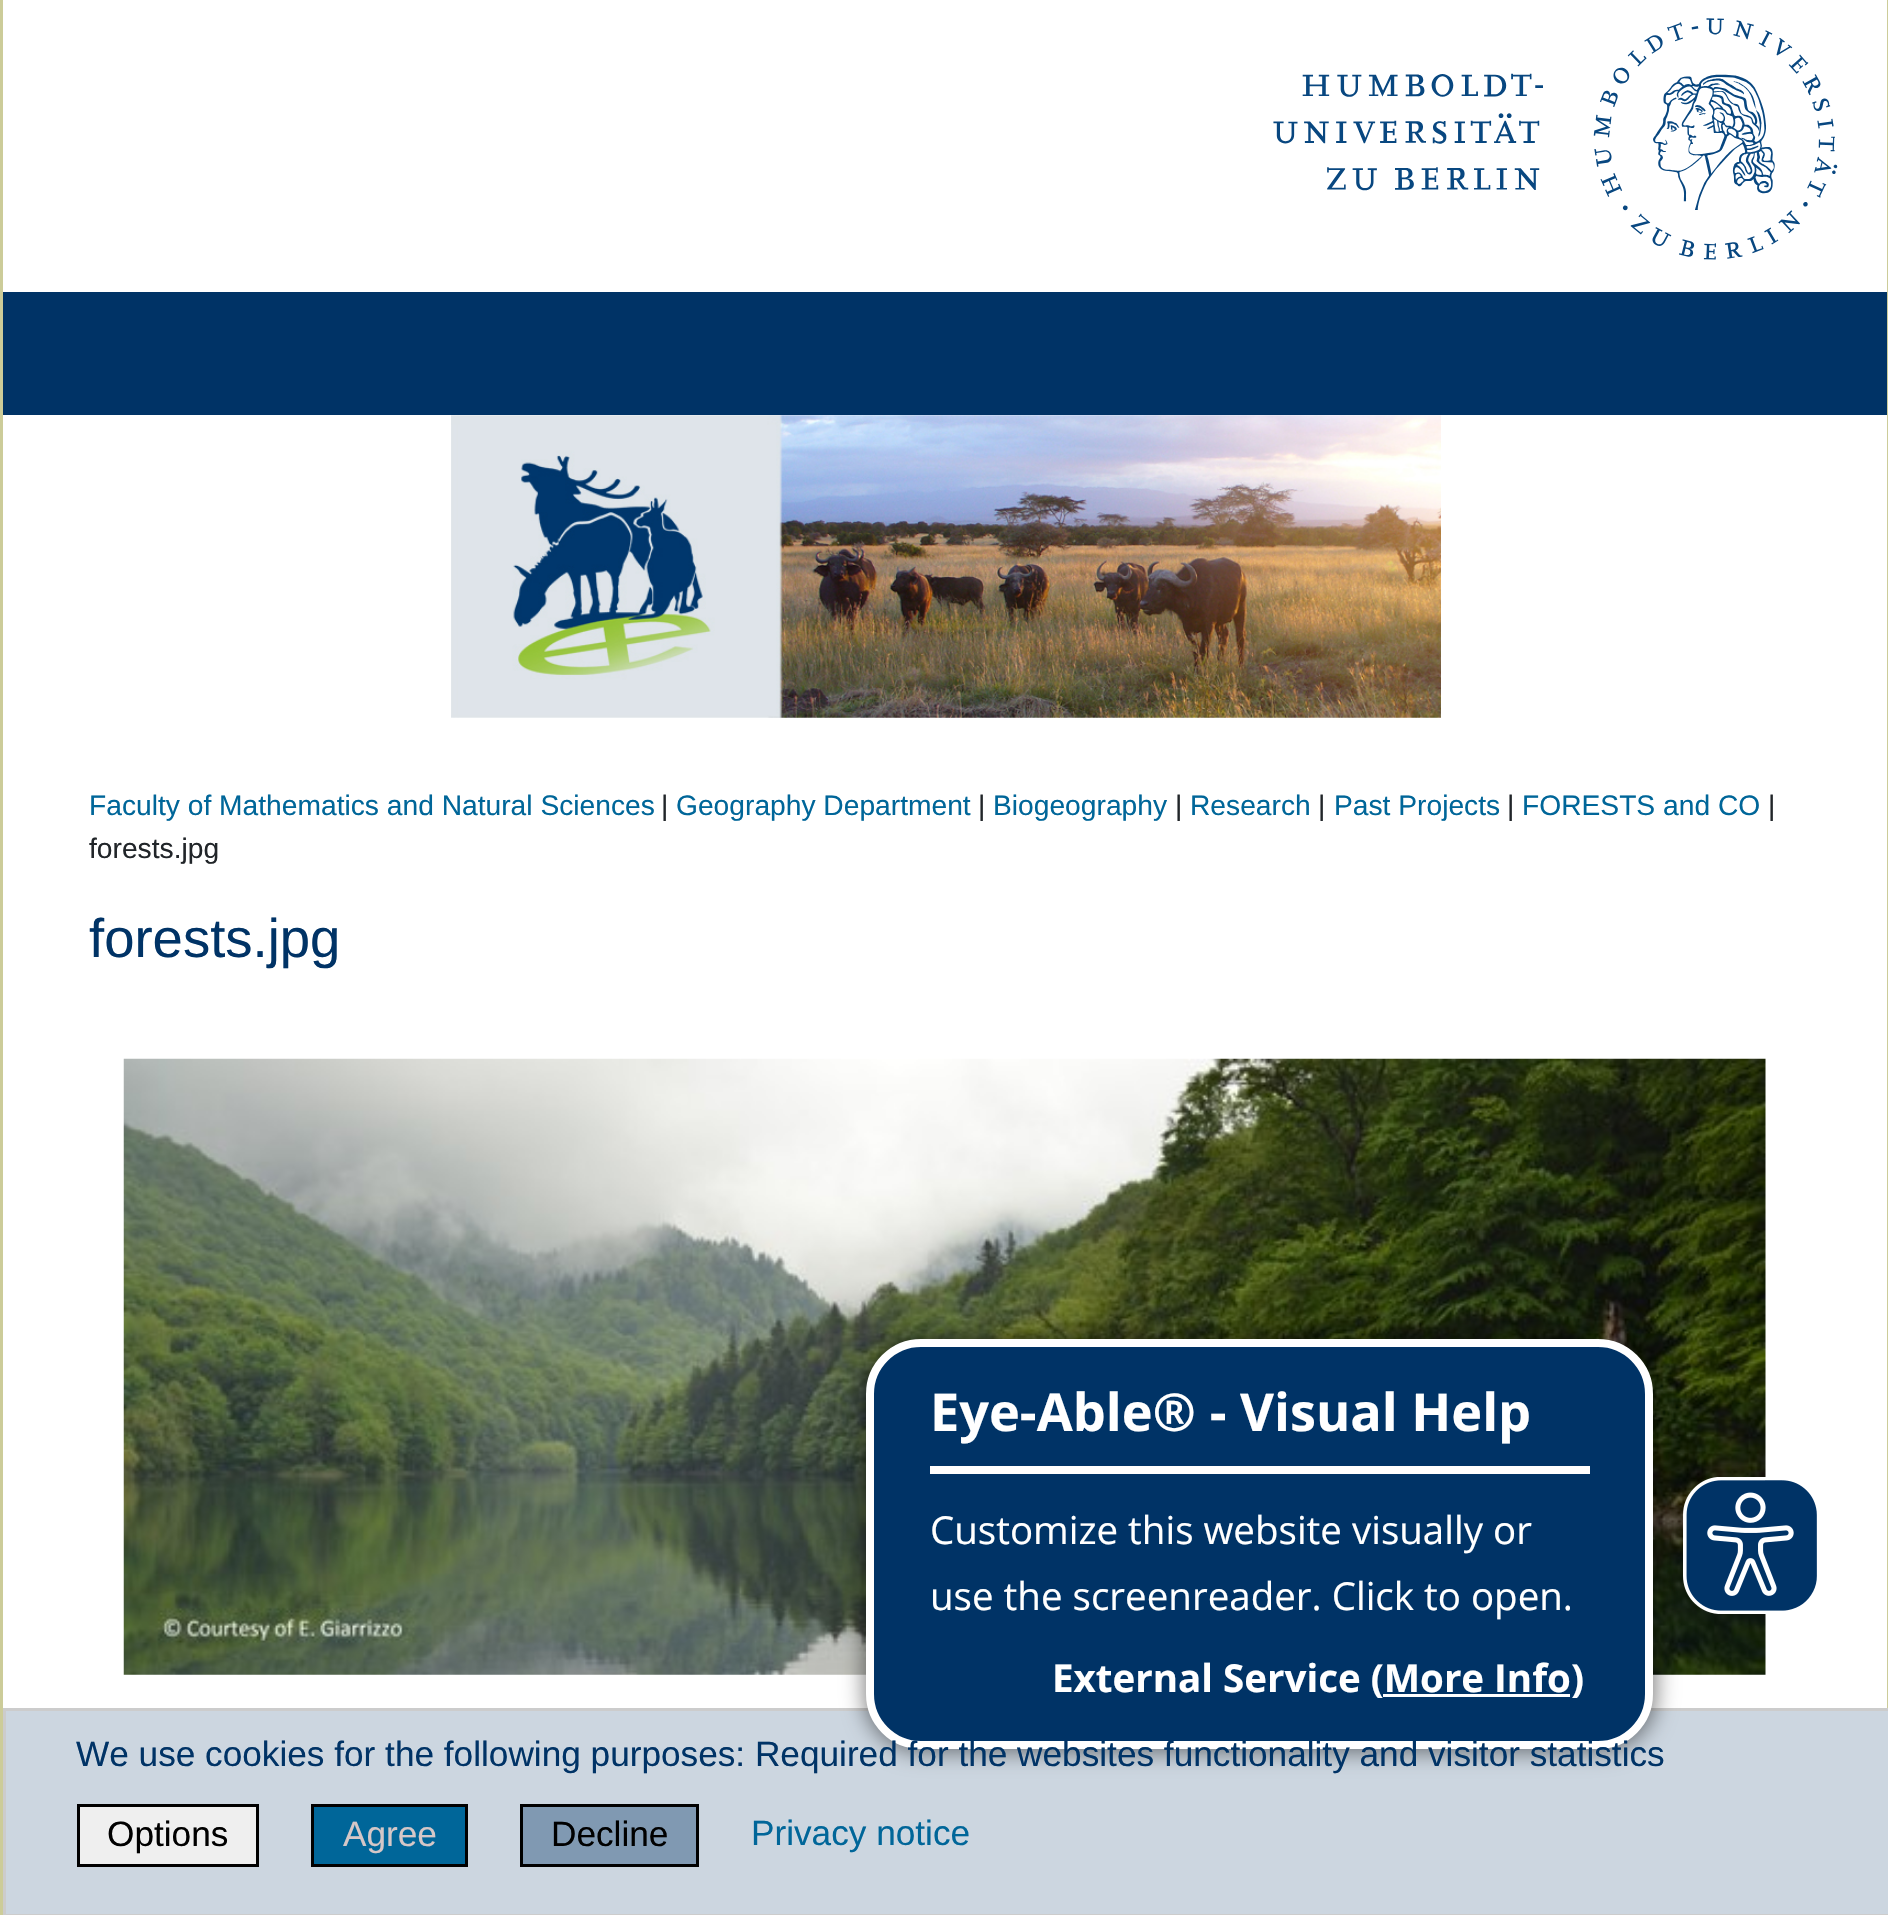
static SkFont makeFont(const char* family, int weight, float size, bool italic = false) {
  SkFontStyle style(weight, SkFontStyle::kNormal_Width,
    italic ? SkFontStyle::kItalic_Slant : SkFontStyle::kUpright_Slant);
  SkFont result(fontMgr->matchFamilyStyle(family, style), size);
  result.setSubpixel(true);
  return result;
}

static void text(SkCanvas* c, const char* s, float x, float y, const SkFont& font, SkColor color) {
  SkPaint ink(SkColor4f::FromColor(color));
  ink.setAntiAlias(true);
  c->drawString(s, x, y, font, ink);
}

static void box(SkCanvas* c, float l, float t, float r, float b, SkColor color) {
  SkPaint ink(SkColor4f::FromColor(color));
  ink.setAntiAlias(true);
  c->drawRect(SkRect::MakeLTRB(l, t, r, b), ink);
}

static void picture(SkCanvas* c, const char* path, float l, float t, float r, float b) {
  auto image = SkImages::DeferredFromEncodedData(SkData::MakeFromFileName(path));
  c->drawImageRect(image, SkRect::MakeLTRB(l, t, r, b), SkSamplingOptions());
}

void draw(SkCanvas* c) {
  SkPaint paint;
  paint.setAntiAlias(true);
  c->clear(0xffffffff);
  picture(c, "img_01.png", 1273, 18, 1838, 260);
  box(c, 3, 292, 1887, 415, 0xff003366);
  picture(c, "img_02.png", 451, 415, 1441, 718);
  box(c, 1887, 0, 1888, 1708, 0xffcccc99);
  box(c, 0, 0, 3, 1915, 0xffcccc99);
  SkFont face1 = makeFont("Liberation Sans", 400, 28.2f);
  text(c, "Faculty of Mathematics and Natural Sciences", 89, 815, face1, 0xff006699);
  text(c, "|", 661, 815, face1, 0xff212529);
  text(c, "Geography Department", 676, 815, face1, 0xff006699);
  text(c, "|", 978, 815, face1, 0xff212529);
  text(c, "Biogeography", 993, 815, face1, 0xff006699);
  text(c, "|", 1175, 815, face1, 0xff212529);
  text(c, "Research", 1190, 815, face1, 0xff006699);
  text(c, "|", 1318, 815, face1, 0xff212529);
  text(c, "Past Projects", 1334, 815, face1, 0xff006699);
  text(c, "|", 1507, 815, face1, 0xff212529);
  text(c, "FORESTS and CO", 1522, 815, face1, 0xff006699);
  text(c, "|", 1768, 815, face1, 0xff212529);
  text(c, "forests.jpg", 89, 858, face1, 0xff212529);
  SkFont face2 = makeFont("Liberation Sans", 400, 54.5f);
  text(c, "forests.jpg", 89, 957, face2, 0xff003366);
  picture(c, "img_03.png", 123, 1058, 1766, 1675);
  paint.setColor(0xffccd6e0);
  c->drawRect(SkRect::MakeLTRB(4.5f, 1709.5f, 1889.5f, 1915.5f), paint);
  paint.setStyle(SkPaint::kStroke_Style);
  paint.setStrokeWidth(3);
  paint.setColor(0xffcccccc);
  c->drawRect(SkRect::MakeLTRB(4.5f, 1709.5f, 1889.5f, 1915.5f), paint);
  paint.setStyle(SkPaint::kFill_Style);
  paint.setColor(0x80000000);
  paint.setMaskFilter(SkMaskFilter::MakeBlur(kNormal_SkBlurStyle, 11));
  c->drawRoundRect(SkRect::MakeLTRB(864, 1337, 1656, 1752), 58, 58, paint);
  paint.setMaskFilter(nullptr);
  paint.setColor(0xff003366);
  c->drawRoundRect(SkRect::MakeLTRB(870, 1343, 1649, 1745), 51, 51, paint);
  paint.setStyle(SkPaint::kStroke_Style);
  paint.setStrokeWidth(8);
  paint.setColor(0xffffffff);
  c->drawRoundRect(SkRect::MakeLTRB(870, 1343, 1649, 1745), 51, 51, paint);
  box(c, 930, 1466, 1590, 1474, 0xffffffff);
  SkFont face3 = makeFont("Open Sans", 700, 52.25f);
  text(c, "Eye-Able® - Visual Help", 930, 1431, face3, 0xffffffff);
  SkFont face4 = makeFont("Open Sans", 400, 38.5f);
  text(c, "Customize this website visually or", 930, 1544, face4, 0xffffffff);
  text(c, "use the screenreader. Click to open.", 930, 1610, face4, 0xffffffff);
  SkFont face5 = makeFont("Open Sans", 700, 38.5f);
  text(c, "External Service (More Info)", 1052, 1692, face5, 0xffffffff);
  box(c, 1383, 1694, 1570, 1697, 0xffffffff);
  picture(c, "img_04.png", 1683, 1477, 1817, 1614);
  SkFont face6 = makeFont("Liberation Sans", 400, 35.2f);
  text(c, "We use cookies for the following purposes: Required for the websites functionality and visitor statistics", 76, 1766, face6, 0xff003366);
  paint.setStyle(SkPaint::kFill_Style);
  paint.setColor(0xffefefef);
  c->drawRect(SkRect::MakeLTRB(78.5f, 1805.5f, 257.5f, 1865.5f), paint);
  paint.setStyle(SkPaint::kStroke_Style);
  paint.setStrokeWidth(3);
  paint.setColor(0xff000000);
  c->drawRect(SkRect::MakeLTRB(78.5f, 1805.5f, 257.5f, 1865.5f), paint);
  text(c, "Options", 107, 1846, face6, 0xff000000);
  paint.setStyle(SkPaint::kFill_Style);
  paint.setColor(0xff006699);
  c->drawRect(SkRect::MakeLTRB(312.5f, 1805.5f, 466.5f, 1865.5f), paint);
  paint.setStyle(SkPaint::kStroke_Style);
  paint.setColor(0xff000000);
  c->drawRect(SkRect::MakeLTRB(312.5f, 1805.5f, 466.5f, 1865.5f), paint);
  text(c, "Agree", 343, 1846, face6, 0xffd5c7c7);
  paint.setStyle(SkPaint::kFill_Style);
  paint.setColor(0xff8099b2);
  c->drawRect(SkRect::MakeLTRB(521.5f, 1805.5f, 697.5f, 1865.5f), paint);
  paint.setStyle(SkPaint::kStroke_Style);
  paint.setColor(0xff000000);
  c->drawRect(SkRect::MakeLTRB(521.5f, 1805.5f, 697.5f, 1865.5f), paint);
  text(c, "Decline", 551, 1846, face6, 0xff000000);
  text(c, "Privacy notice", 751, 1845, face6, 0xff006699);
}
